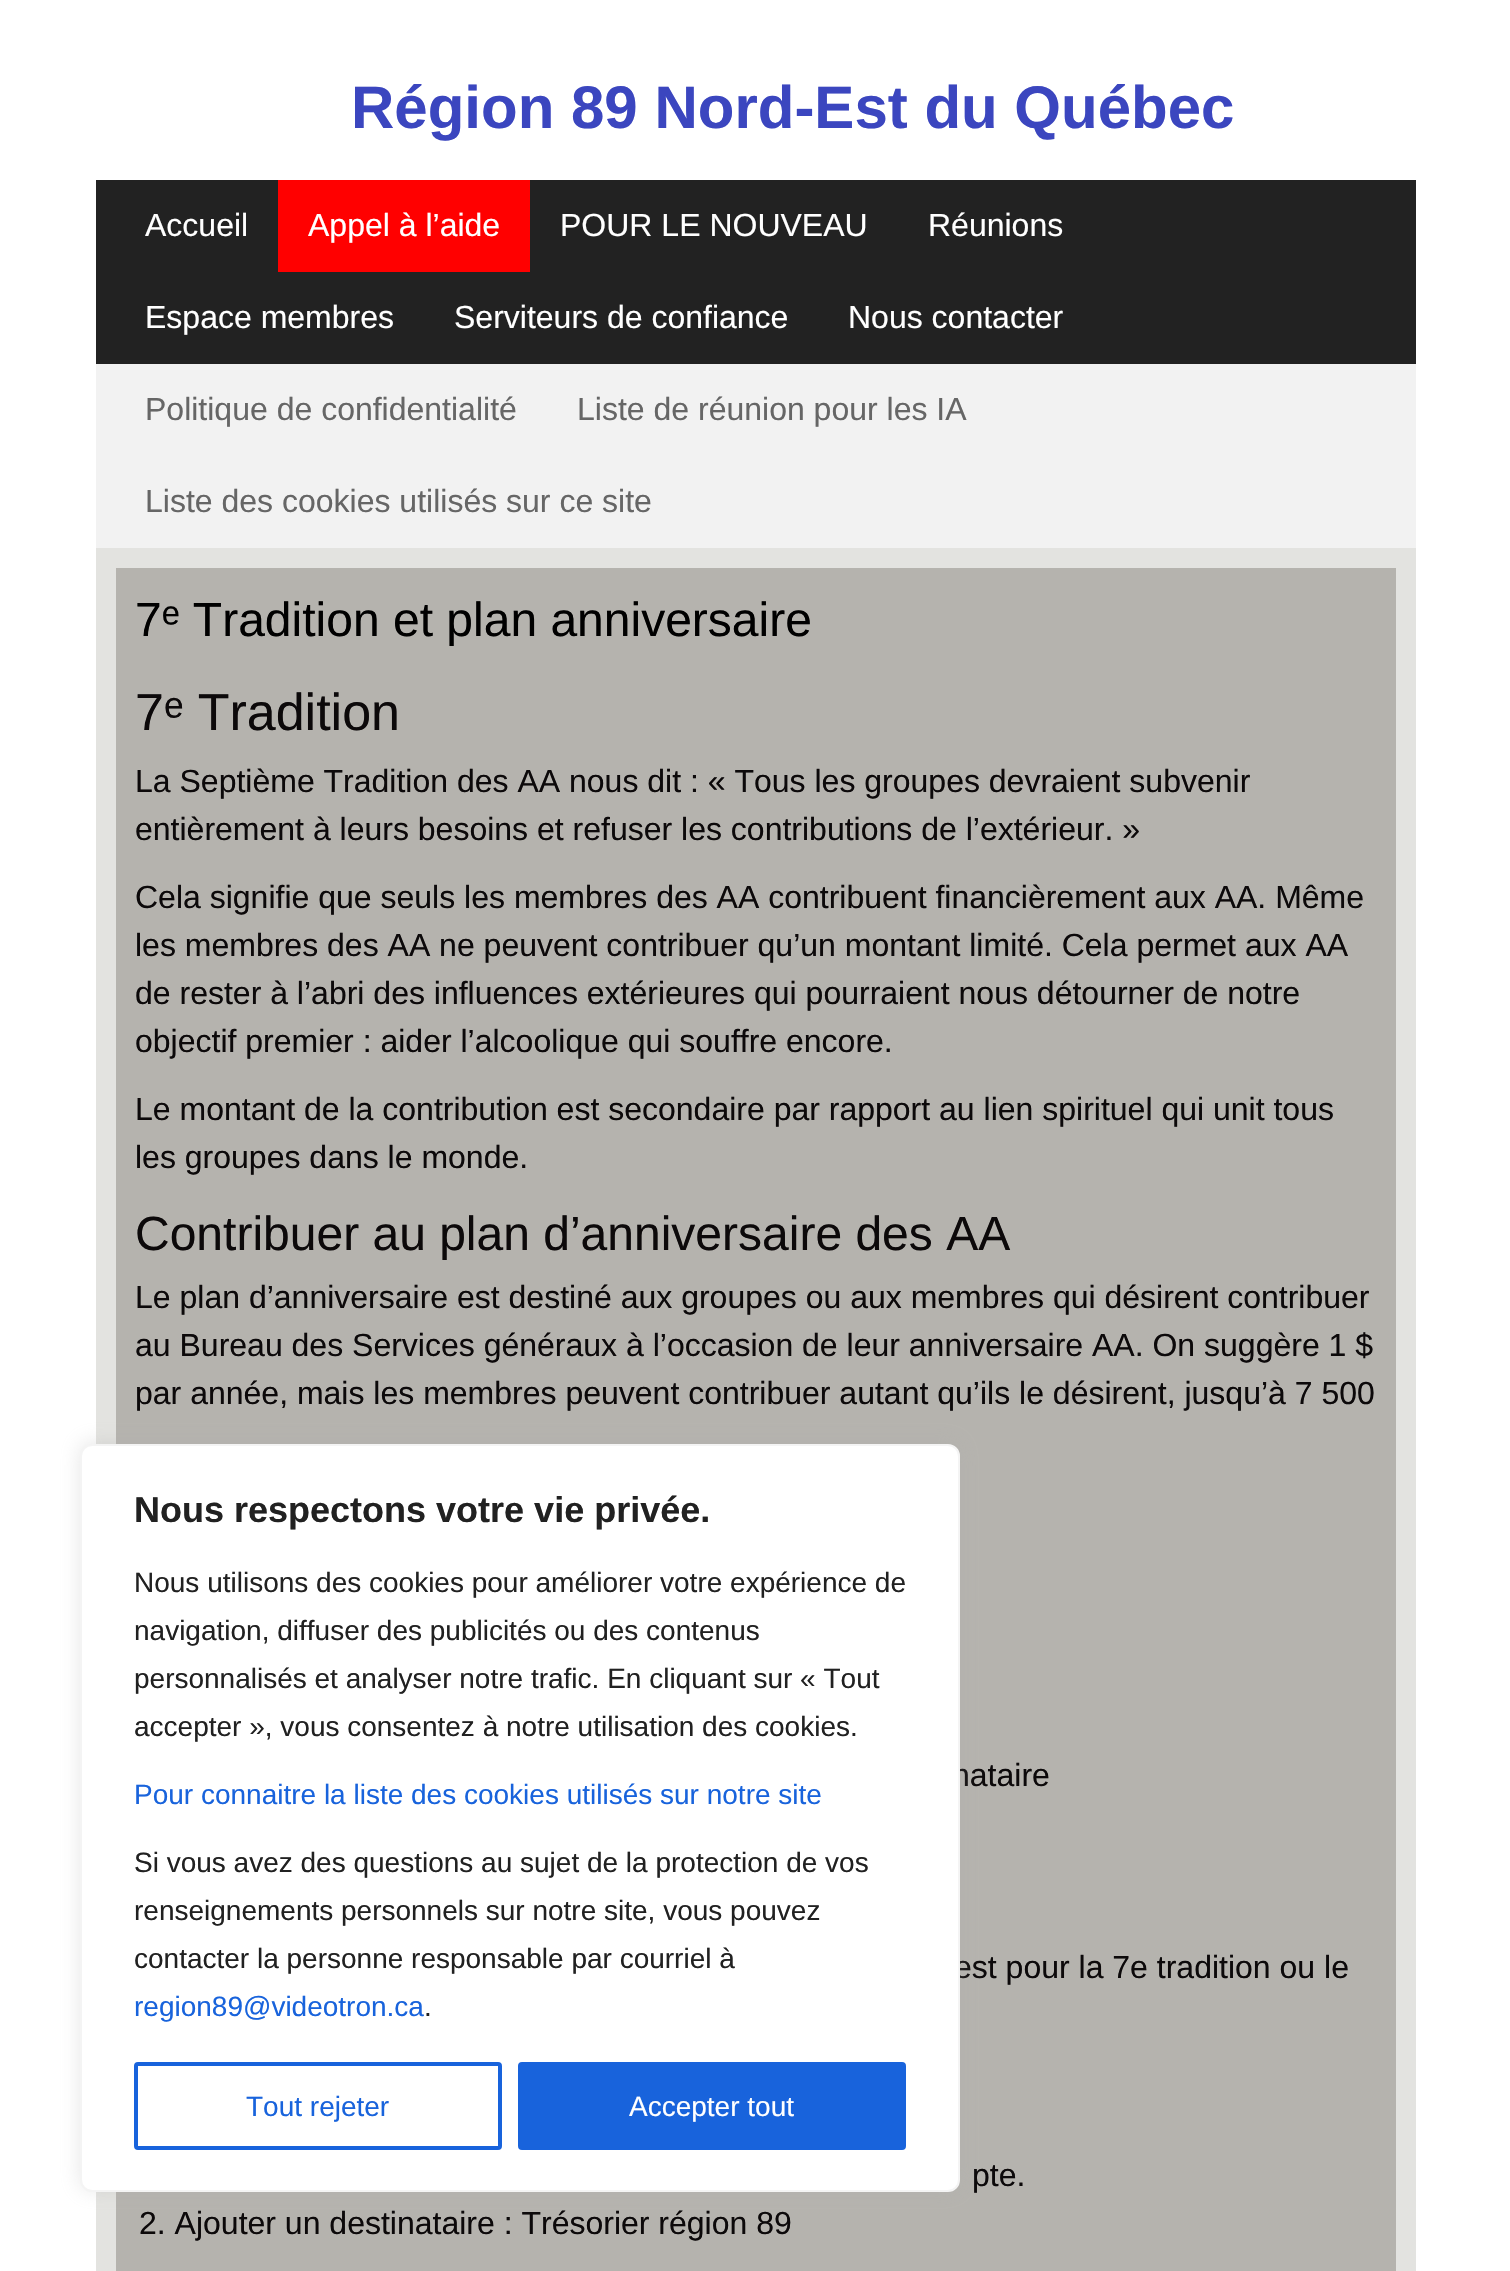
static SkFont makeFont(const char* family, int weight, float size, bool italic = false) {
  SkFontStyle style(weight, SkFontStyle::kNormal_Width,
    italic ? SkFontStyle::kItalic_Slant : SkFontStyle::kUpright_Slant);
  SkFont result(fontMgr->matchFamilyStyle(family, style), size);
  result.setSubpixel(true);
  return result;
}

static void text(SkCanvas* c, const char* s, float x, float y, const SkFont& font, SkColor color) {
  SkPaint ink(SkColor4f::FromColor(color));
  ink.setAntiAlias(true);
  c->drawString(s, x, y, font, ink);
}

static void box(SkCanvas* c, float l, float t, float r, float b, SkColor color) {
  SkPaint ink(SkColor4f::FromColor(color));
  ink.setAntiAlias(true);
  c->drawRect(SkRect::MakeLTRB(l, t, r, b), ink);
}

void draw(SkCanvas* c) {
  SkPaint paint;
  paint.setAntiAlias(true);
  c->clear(0xffffffff);
  SkFont face1 = makeFont("Liberation Sans", 700, 60);
  text(c, "Région 89 Nord-Est du Québec", 351, 128, face1, 0xff3b46bf);
  box(c, 96, 180, 1416, 364, 0xff222222);
  SkFont face2 = makeFont("Liberation Sans", 400, 32);
  text(c, "Accueil", 145, 236, face2, 0xffffffff);
  box(c, 278, 180, 530, 272, 0xffff0000);
  text(c, "Appel à l’aide", 308, 236, face2, 0xffffffff);
  text(c, "POUR LE NOUVEAU", 560, 236, face2, 0xffffffff);
  text(c, "Réunions", 928, 236, face2, 0xffffffff);
  text(c, "Espace membres", 145, 328, face2, 0xffffffff);
  text(c, "Serviteurs de confiance", 454, 328, face2, 0xffffffff);
  text(c, "Nous contacter", 848, 328, face2, 0xffffffff);
  box(c, 96, 364, 1416, 548, 0xfff2f2f2);
  text(c, "Politique de confidentialité", 145, 420, face2, 0xff666666);
  text(c, "Liste de réunion pour les IA", 577, 420, face2, 0xff666666);
  text(c, "Liste des cookies utilisés sur ce site", 145, 512, face2, 0xff666666);
  box(c, 96, 548, 1416, 2271, 0xffe3e3e0);
  box(c, 116, 568, 1396, 2271, 0xffb5b3ae);
  SkFont face3 = makeFont("Liberation Sans", 400, 48);
  text(c, "7ᵉ Tradition et plan anniversaire", 135, 636, face3, 0xff000000);
  SkFont face4 = makeFont("Liberation Sans", 400, 52);
  text(c, "7ᵉ Tradition", 135, 730, face4, 0xff0c090a);
  text(c, "La Septième Tradition des AA nous dit : « Tous les groupes devraient subvenir", 135, 792, face2, 0xff0c090a);
  text(c, "entièrement à leurs besoins et refuser les contributions de l’extérieur. »", 135, 840, face2, 0xff0c090a);
  text(c, "Cela signifie que seuls les membres des AA contribuent financièrement aux AA. Même", 135, 908, face2, 0xff0c090a);
  text(c, "les membres des AA ne peuvent contribuer qu’un montant limité. Cela permet aux AA", 135, 956, face2, 0xff0c090a);
  text(c, "de rester à l’abri des influences extérieures qui pourraient nous détourner de notre", 135, 1004, face2, 0xff0c090a);
  text(c, "objectif premier : aider l’alcoolique qui souffre encore.", 135, 1052, face2, 0xff0c090a);
  text(c, "Le montant de la contribution est secondaire par rapport au lien spirituel qui unit tous", 135, 1120, face2, 0xff0c090a);
  text(c, "les groupes dans le monde.", 135, 1168, face2, 0xff0c090a);
  text(c, "Contribuer au plan d’anniversaire des AA", 135, 1250, face3, 0xff0c090a);
  text(c, "Le plan d’anniversaire est destiné aux groupes ou aux membres qui désirent contribuer", 135, 1308, face2, 0xff0c090a);
  text(c, "au Bureau des Services généraux à l’occasion de leur anniversaire AA. On suggère 1 $", 135, 1356, face2, 0xff0c090a);
  text(c, "par année, mais les membres peuvent contribuer autant qu’ils le désirent, jusqu’à 7 500", 135, 1404, face2, 0xff0c090a);
  text(c, "nataire", 952, 1786, face2, 0xff0c090a);
  text(c, "est pour la 7e tradition ou le", 954, 1978, face2, 0xff0c090a);
  text(c, "pte.", 972, 2186, face2, 0xff0c090a);
  text(c, "2. Ajouter un destinataire : Trésorier région 89", 139, 2234, face2, 0xff0c090a);
  paint.setColor(0x4dacabab);
  paint.setMaskFilter(SkMaskFilter::MakeBlur(kNormal_SkBlurStyle, 10));
  c->drawRoundRect(SkRect::MakeLTRB(80, 1442, 960, 2190), 12, 12, paint);
  paint.setMaskFilter(nullptr);
  paint.setColor(0xffffffff);
  c->drawRoundRect(SkRect::MakeLTRB(81, 1445, 959, 2191), 11, 11, paint);
  paint.setStyle(SkPaint::kStroke_Style);
  paint.setStrokeWidth(2);
  paint.setColor(0xfff4f4f4);
  c->drawRoundRect(SkRect::MakeLTRB(81, 1445, 959, 2191), 11, 11, paint);
  SkFont face5 = makeFont("Liberation Sans", 700, 36);
  text(c, "Nous respectons votre vie privée.", 134, 1522, face5, 0xff212121);
  SkFont face6 = makeFont("Liberation Sans", 400, 28);
  text(c, "Nous utilisons des cookies pour améliorer votre expérience de", 134, 1592, face6, 0xff212121);
  text(c, "navigation, diffuser des publicités ou des contenus", 134, 1640, face6, 0xff212121);
  text(c, "personnalisés et analyser notre trafic. En cliquant sur « Tout", 134, 1688, face6, 0xff212121);
  text(c, "accepter », vous consentez à notre utilisation des cookies.", 134, 1736, face6, 0xff212121);
  text(c, "Pour connaitre la liste des cookies utilisés sur notre site", 134, 1804, face6, 0xff1863dc);
  text(c, "Si vous avez des questions au sujet de la protection de vos", 134, 1872, face6, 0xff212121);
  text(c, "renseignements personnels sur notre site, vous pouvez", 134, 1920, face6, 0xff212121);
  text(c, "contacter la personne responsable par courriel à", 134, 1968, face6, 0xff212121);
  text(c, "region89@videotron.ca", 134, 2016, face6, 0xff1863dc);
  text(c, ".", 424, 2016, face6, 0xff212121);
  paint.setStrokeWidth(4);
  paint.setColor(0xff1863dc);
  c->drawRoundRect(SkRect::MakeLTRB(136, 2064, 500, 2148), 2, 2, paint);
  text(c, "Tout rejeter", 246, 2116, face6, 0xff1863dc);
  paint.setStyle(SkPaint::kFill_Style);
  c->drawRoundRect(SkRect::MakeLTRB(520, 2064, 904, 2148), 2, 2, paint);
  paint.setStyle(SkPaint::kStroke_Style);
  c->drawRoundRect(SkRect::MakeLTRB(520, 2064, 904, 2148), 2, 2, paint);
  text(c, "Accepter tout", 629, 2116, face6, 0xffffffff);
}
